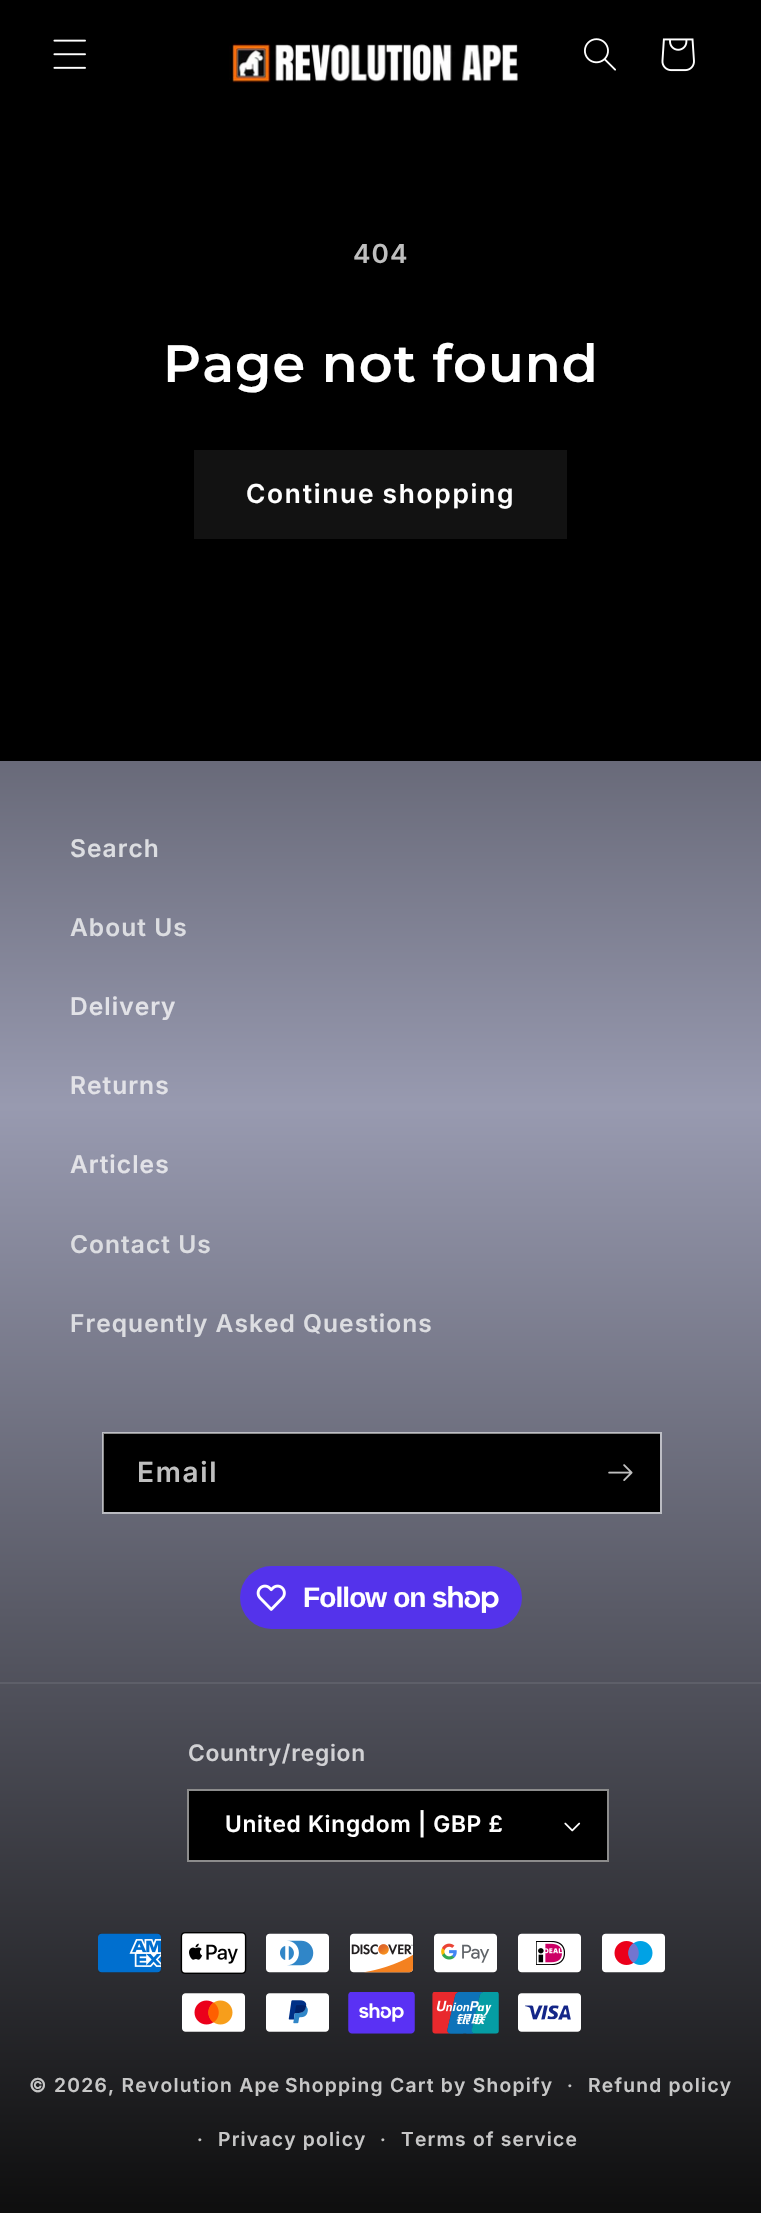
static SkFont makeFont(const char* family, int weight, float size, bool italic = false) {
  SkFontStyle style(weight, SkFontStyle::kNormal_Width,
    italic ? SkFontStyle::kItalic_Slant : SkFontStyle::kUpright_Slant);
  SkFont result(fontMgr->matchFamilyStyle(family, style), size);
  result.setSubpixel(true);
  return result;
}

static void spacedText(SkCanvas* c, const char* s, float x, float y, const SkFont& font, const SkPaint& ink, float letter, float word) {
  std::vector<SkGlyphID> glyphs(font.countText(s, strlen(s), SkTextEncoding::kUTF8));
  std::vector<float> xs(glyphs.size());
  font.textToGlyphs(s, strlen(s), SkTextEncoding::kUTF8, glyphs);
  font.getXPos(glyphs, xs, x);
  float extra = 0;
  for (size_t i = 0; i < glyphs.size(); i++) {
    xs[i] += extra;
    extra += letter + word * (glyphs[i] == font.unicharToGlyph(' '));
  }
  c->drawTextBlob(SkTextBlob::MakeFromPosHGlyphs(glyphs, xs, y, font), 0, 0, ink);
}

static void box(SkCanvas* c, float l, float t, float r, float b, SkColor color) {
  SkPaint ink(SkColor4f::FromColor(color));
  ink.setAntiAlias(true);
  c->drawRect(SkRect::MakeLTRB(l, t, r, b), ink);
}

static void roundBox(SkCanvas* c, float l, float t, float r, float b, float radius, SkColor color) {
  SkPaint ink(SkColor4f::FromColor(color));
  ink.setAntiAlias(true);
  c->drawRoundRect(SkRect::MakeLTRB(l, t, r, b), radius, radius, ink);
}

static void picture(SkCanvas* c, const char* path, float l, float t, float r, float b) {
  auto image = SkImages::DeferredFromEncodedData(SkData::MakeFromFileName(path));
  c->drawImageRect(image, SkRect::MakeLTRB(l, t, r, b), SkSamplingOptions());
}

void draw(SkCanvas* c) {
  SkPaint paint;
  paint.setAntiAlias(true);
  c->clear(0xff000000);
  picture(c, "img_01.png", 53, 39, 86, 69);
  picture(c, "img_02.png", 229, 43, 518, 83);
  picture(c, "img_03.png", 584, 38, 616, 71);
  picture(c, "img_04.png", 661, 38, 695, 72);
  SkFont face1 = makeFont("Inter", 600, 26.25f);
  paint.setColor(0xffbfbfbf);
  spacedText(c, "404", 353, 263, face1, paint, 1.05f, 0);
  SkFont face2 = makeFont("Montserrat", 600, 52.5f);
  paint.setColor(0xffffffff);
  spacedText(c, "Page not found", 163, 382, face2, paint, 1.05f, 0);
  box(c, 194, 450, 567, 539, 0xff121212);
  spacedText(c, "Continue shopping", 246, 503, face1, paint, 1.75f, -1);
  {
    const SkColor colors[] = {0xff000000, 0xff989ab0, 0xff0e0e0e, 0xfff92020};
    const float stops[] = {0, 0.5f, 1, 1};
    const SkPoint ends[] = {{381, 0}, {381, 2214}};
    paint.setShader(SkGradientShader::MakeLinear(ends, colors, stops, 4, SkTileMode::kClamp));
    paint.setAlpha(255);
  }
  c->drawRect(SkRect::MakeLTRB(0, 761, 761, 2213), paint);
  SkFont face3 = makeFont("Inter", 600, 24.5f);
  paint.setShader(nullptr);
  paint.setColor(0xffdcdde1);
  spacedText(c, "Search", 70, 857, face3, paint, 1.05f, 0);
  spacedText(c, "About Us", 70, 936, face3, paint, 1.05f, 0);
  paint.setColor(0xffe2e2e7);
  spacedText(c, "Delivery", 70, 1015, face3, paint, 1.05f, 0);
  spacedText(c, "Returns", 70, 1094, face3, paint, 1.05f, 0);
  spacedText(c, "Articles", 70, 1173, face3, paint, 1.05f, 0);
  paint.setColor(0xffdcdde1);
  spacedText(c, "Contact Us", 70, 1253, face3, paint, 1.05f, 0);
  spacedText(c, "Frequently Asked Questions", 70, 1332, face3, paint, 1.05f, 0);
  box(c, 103, 1433, 660, 1512, 0xff000000);
  paint.setStyle(SkPaint::kStroke_Style);
  paint.setStrokeWidth(2);
  paint.setColor(0x8cffffff);
  c->drawRect(SkRect::MakeLTRB(103, 1433, 661, 1513), paint);
  SkFont face4 = makeFont("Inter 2", 600, 28);
  paint.setStyle(SkPaint::kFill_Style);
  paint.setColor(0xffbfbfbf);
  spacedText(c, "Email", 137, 1482, face4, paint, 1.75f, 0);
  picture(c, "img_05.png", 608, 1464, 633, 1481);
  roundBox(c, 240, 1566, 522, 1629, 31.5f, 0xff5433eb);
  picture(c, "img_06.png", 256, 1584, 286, 1611);
  SkFont face5 = makeFont("Liberation Sans", 700, 28);
  paint.setColor(0xffffffff);
  spacedText(c, "Follow on", 303, 1607, face5, paint, -0.9f, 0);
  picture(c, "img_07.png", 433, 1586, 499, 1613);
  box(c, 0, 1682, 761, 1684, 0xff5e5f69);
  SkFont face6 = makeFont("Inter", 600, 22.75f);
  paint.setColor(0xffd1d1d4);
  spacedText(c, "Country/region", 188, 1761, face6, paint, 0.7f, 0);
  box(c, 189, 1791, 607, 1860, 0xff000000);
  picture(c, "img_08.png", 564, 1822, 581, 1832);
  paint.setStyle(SkPaint::kStroke_Style);
  paint.setColor(0xff8c8c8c);
  c->drawRect(SkRect::MakeLTRB(188, 1790, 608, 1861), paint);
  paint.setStyle(SkPaint::kFill_Style);
  paint.setColor(0xffffffff);
  spacedText(c, "United Kingdom | GBP £", 225, 1832, face6, paint, 0.7f, 0);
  picture(c, "img_09.png", 98, 1933, 161, 1973);
  picture(c, "img_10.png", 180, 1932, 247, 1974);
  picture(c, "img_11.png", 266, 1933, 329, 1973);
  picture(c, "img_12.png", 350, 1933, 414, 1973);
  picture(c, "img_13.png", 434, 1933, 497, 1973);
  picture(c, "img_14.png", 518, 1933, 581, 1973);
  picture(c, "img_15.png", 602, 1933, 665, 1973);
  picture(c, "img_16.png", 182, 1993, 245, 2032);
  picture(c, "img_17.png", 266, 1993, 329, 2032);
  picture(c, "img_18.png", 348, 1992, 415, 2034);
  picture(c, "img_19.png", 432, 1992, 499, 2034);
  picture(c, "img_20.png", 518, 1993, 581, 2032);
  SkFont face7 = makeFont("Inter", 600, 19.25f);
  paint.setColor(0xffc7c7c7);
  spacedText(c, "© 2026, Revolution Ape", 29, 2092, face7, paint, 1.25f, 0);
  SkFont face8 = makeFont("Inter", 600, 18);
  spacedText(c, "·", 567, 2092, face8, paint, 1.25f, 0);
  spacedText(c, "Refund policy", 588, 2092, face7, paint, 1.25f, 0);
  spacedText(c, "·", 197, 2146, face8, paint, 1.25f, 0);
  spacedText(c, "Privacy policy", 218, 2146, face7, paint, 1.25f, 0);
  spacedText(c, "·", 380, 2146, face8, paint, 1.25f, 0);
  spacedText(c, "Terms of service", 401, 2146, face7, paint, 1.25f, 0);
  spacedText(c, "Shopping Cart by Shopify", 285, 2092, face7, paint, 1.25f, 0);
}
